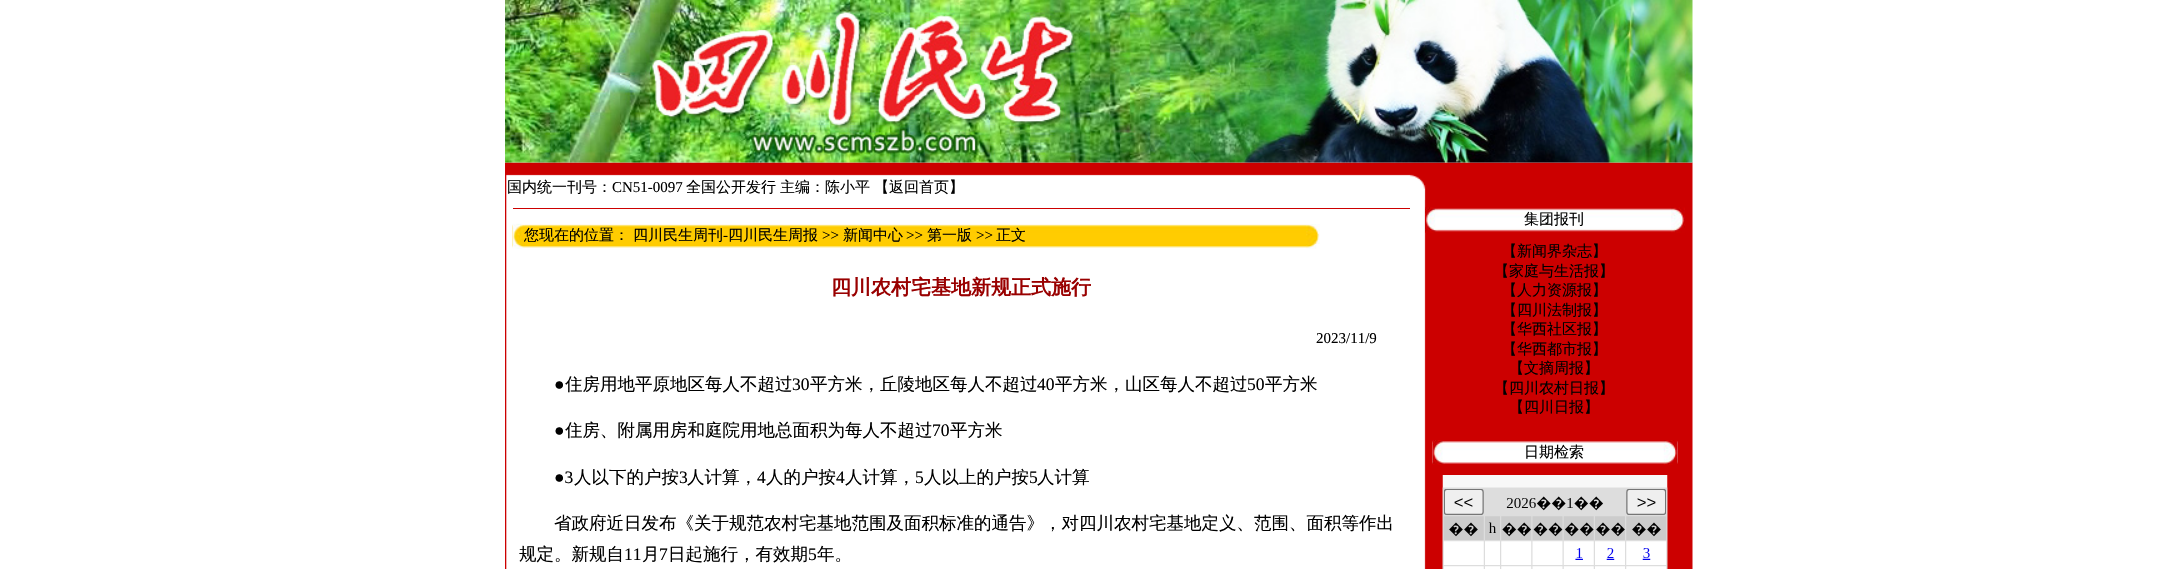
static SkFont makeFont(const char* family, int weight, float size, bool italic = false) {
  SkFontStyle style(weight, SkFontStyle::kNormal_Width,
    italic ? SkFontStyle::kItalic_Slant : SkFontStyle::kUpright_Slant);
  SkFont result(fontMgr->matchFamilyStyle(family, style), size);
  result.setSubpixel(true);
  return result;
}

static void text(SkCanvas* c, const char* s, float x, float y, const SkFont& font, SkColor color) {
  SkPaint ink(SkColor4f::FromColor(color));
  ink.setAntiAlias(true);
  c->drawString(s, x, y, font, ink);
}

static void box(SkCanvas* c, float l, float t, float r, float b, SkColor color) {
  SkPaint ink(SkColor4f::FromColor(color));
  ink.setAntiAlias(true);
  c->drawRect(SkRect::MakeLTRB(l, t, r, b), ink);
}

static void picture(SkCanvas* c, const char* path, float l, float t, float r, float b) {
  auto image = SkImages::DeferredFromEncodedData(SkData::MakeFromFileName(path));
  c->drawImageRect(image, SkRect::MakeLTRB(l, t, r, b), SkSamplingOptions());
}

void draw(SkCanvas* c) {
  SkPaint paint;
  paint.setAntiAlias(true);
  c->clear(0xffffffff);
  picture(c, "img_02.png", 505, 162, 1693, 200);
  picture(c, "img_01.png", 505, 0, 1693, 163);
  SkFont face1 = makeFont("WenQuanYi Zen Hei", 500, 15);
  text(c, "国内统一刊号：", 507, 192, face1, 0xff000000);
  SkFont face2 = makeFont("Liberation Serif", 400, 15);
  text(c, "CN51-0097", 612, 192, face2, 0xff000000);
  text(c, "全国公开发行", 686, 192, face1, 0xff000000);
  text(c, "主编：陈小平", 780, 192, face1, 0xff000000);
  text(c, "【返回首页】", 874, 192, face1, 0xff000000);
  picture(c, "img_03.png", 505, 200, 1693, 569);
  box(c, 513, 208, 1410, 209, 0xffcc0000);
  picture(c, "img_04.png", 512, 224, 1307, 248);
  picture(c, "img_05.png", 512, 223, 525, 249);
  text(c, "您现在的位置：", 524, 240, face1, 0xff000000);
  text(c, "四川民生周刊", 633, 240, face1, 0xff000000);
  text(c, "-", 723, 240, face2, 0xff000000);
  text(c, "四川民生周报", 728, 240, face1, 0xff000000);
  text(c, ">>", 822, 240, face2, 0xff000000);
  text(c, "新闻中心", 843, 240, face1, 0xff000000);
  text(c, ">>", 906, 240, face2, 0xff000000);
  text(c, "第一版", 927, 240, face1, 0xff000000);
  text(c, ">>", 976, 240, face2, 0xff000000);
  text(c, "正文", 996, 240, face1, 0xff000000);
  picture(c, "img_06.png", 1306, 224, 1320, 249);
  SkFont face3 = makeFont("WenQuanYi Zen Hei", 700, 20);
  text(c, "四川农村宅基地新规正式施行", 831, 294, face3, 0xff990000);
  text(c, "2023/11/9", 1316, 343, face2, 0xff000000);
  SkFont face4 = makeFont("Liberation Serif", 400, 17.5f);
  text(c, "●", 554, 390, face4, 0xff000000);
  SkFont face5 = makeFont("WenQuanYi Zen Hei", 500, 17.5f);
  text(c, "住房用地平原地区每人不超过", 565, 390, face5, 0xff000000);
  text(c, "30", 792, 390, face4, 0xff000000);
  text(c, "平方米，丘陵地区每人不超过", 810, 390, face5, 0xff000000);
  text(c, "40", 1037, 390, face4, 0xff000000);
  text(c, "平方米，山区每人不超过", 1055, 390, face5, 0xff000000);
  text(c, "50", 1247, 390, face4, 0xff000000);
  text(c, "平方米", 1265, 390, face5, 0xff000000);
  text(c, "●", 554, 436, face4, 0xff000000);
  text(c, "住房、附属用房和庭院用地总面积为每人不超过", 565, 436, face5, 0xff000000);
  text(c, "70", 932, 436, face4, 0xff000000);
  text(c, "平方米", 950, 436, face5, 0xff000000);
  text(c, "●3", 554, 483, face4, 0xff000000);
  text(c, "人以下的户按", 574, 483, face5, 0xff000000);
  text(c, "3", 679, 483, face4, 0xff000000);
  text(c, "人计算，", 687, 483, face5, 0xff000000);
  text(c, "4", 757, 483, face4, 0xff000000);
  text(c, "人的户按", 766, 483, face5, 0xff000000);
  text(c, "4", 836, 483, face4, 0xff000000);
  text(c, "人计算，", 845, 483, face5, 0xff000000);
  text(c, "5", 915, 483, face4, 0xff000000);
  text(c, "人以上的户按", 924, 483, face5, 0xff000000);
  text(c, "5", 1029, 483, face4, 0xff000000);
  text(c, "人计算", 1037, 483, face5, 0xff000000);
  text(c, "省政府近日发布《关于规范农村宅基地范围及面积标准的通告》，对四川农村宅基地定义、范围、面积等作出", 554, 529, face5, 0xff000000);
  text(c, "规定。新规自", 519, 560, face5, 0xff000000);
  text(c, "11", 624, 560, face4, 0xff000000);
  text(c, "月", 642, 560, face5, 0xff000000);
  text(c, "7", 659, 560, face4, 0xff000000);
  text(c, "日起施行，有效期", 668, 560, face5, 0xff000000);
  text(c, "5", 808, 560, face4, 0xff000000);
  text(c, "年。", 817, 560, face5, 0xff000000);
  picture(c, "img_07.png", 1425, 207, 1685, 233);
  picture(c, "img_08.png", 1425, 207, 1438, 233);
  text(c, "集团报刊", 1524, 224, face1, 0xff000000);
  picture(c, "img_09.png", 1671, 207, 1685, 233);
  text(c, "【新闻界杂志】", 1502, 256, face1, 0xff000000);
  text(c, "【家庭与生活报】", 1494, 276, face1, 0xff000000);
  text(c, "【人力资源报】", 1502, 295, face1, 0xff000000);
  text(c, "【四川法制报】", 1502, 315, face1, 0xff000000);
  text(c, "【华西社区报】", 1502, 334, face1, 0xff000000);
  text(c, "【华西都市报】", 1502, 354, face1, 0xff000000);
  text(c, "【文摘周报】", 1509, 373, face1, 0xff000000);
  text(c, "【四川农村日报】", 1494, 393, face1, 0xff000000);
  text(c, "【四川日报】", 1509, 412, face1, 0xff000000);
  picture(c, "img_10.png", 1432, 441, 1678, 464);
  picture(c, "img_11.png", 1432, 440, 1445, 465);
  text(c, "日期检索", 1524, 457, face1, 0xff000000);
  picture(c, "img_12.png", 1663, 440, 1678, 465);
  picture(c, "img_13.png", 1442, 475, 1668, 569);
}
